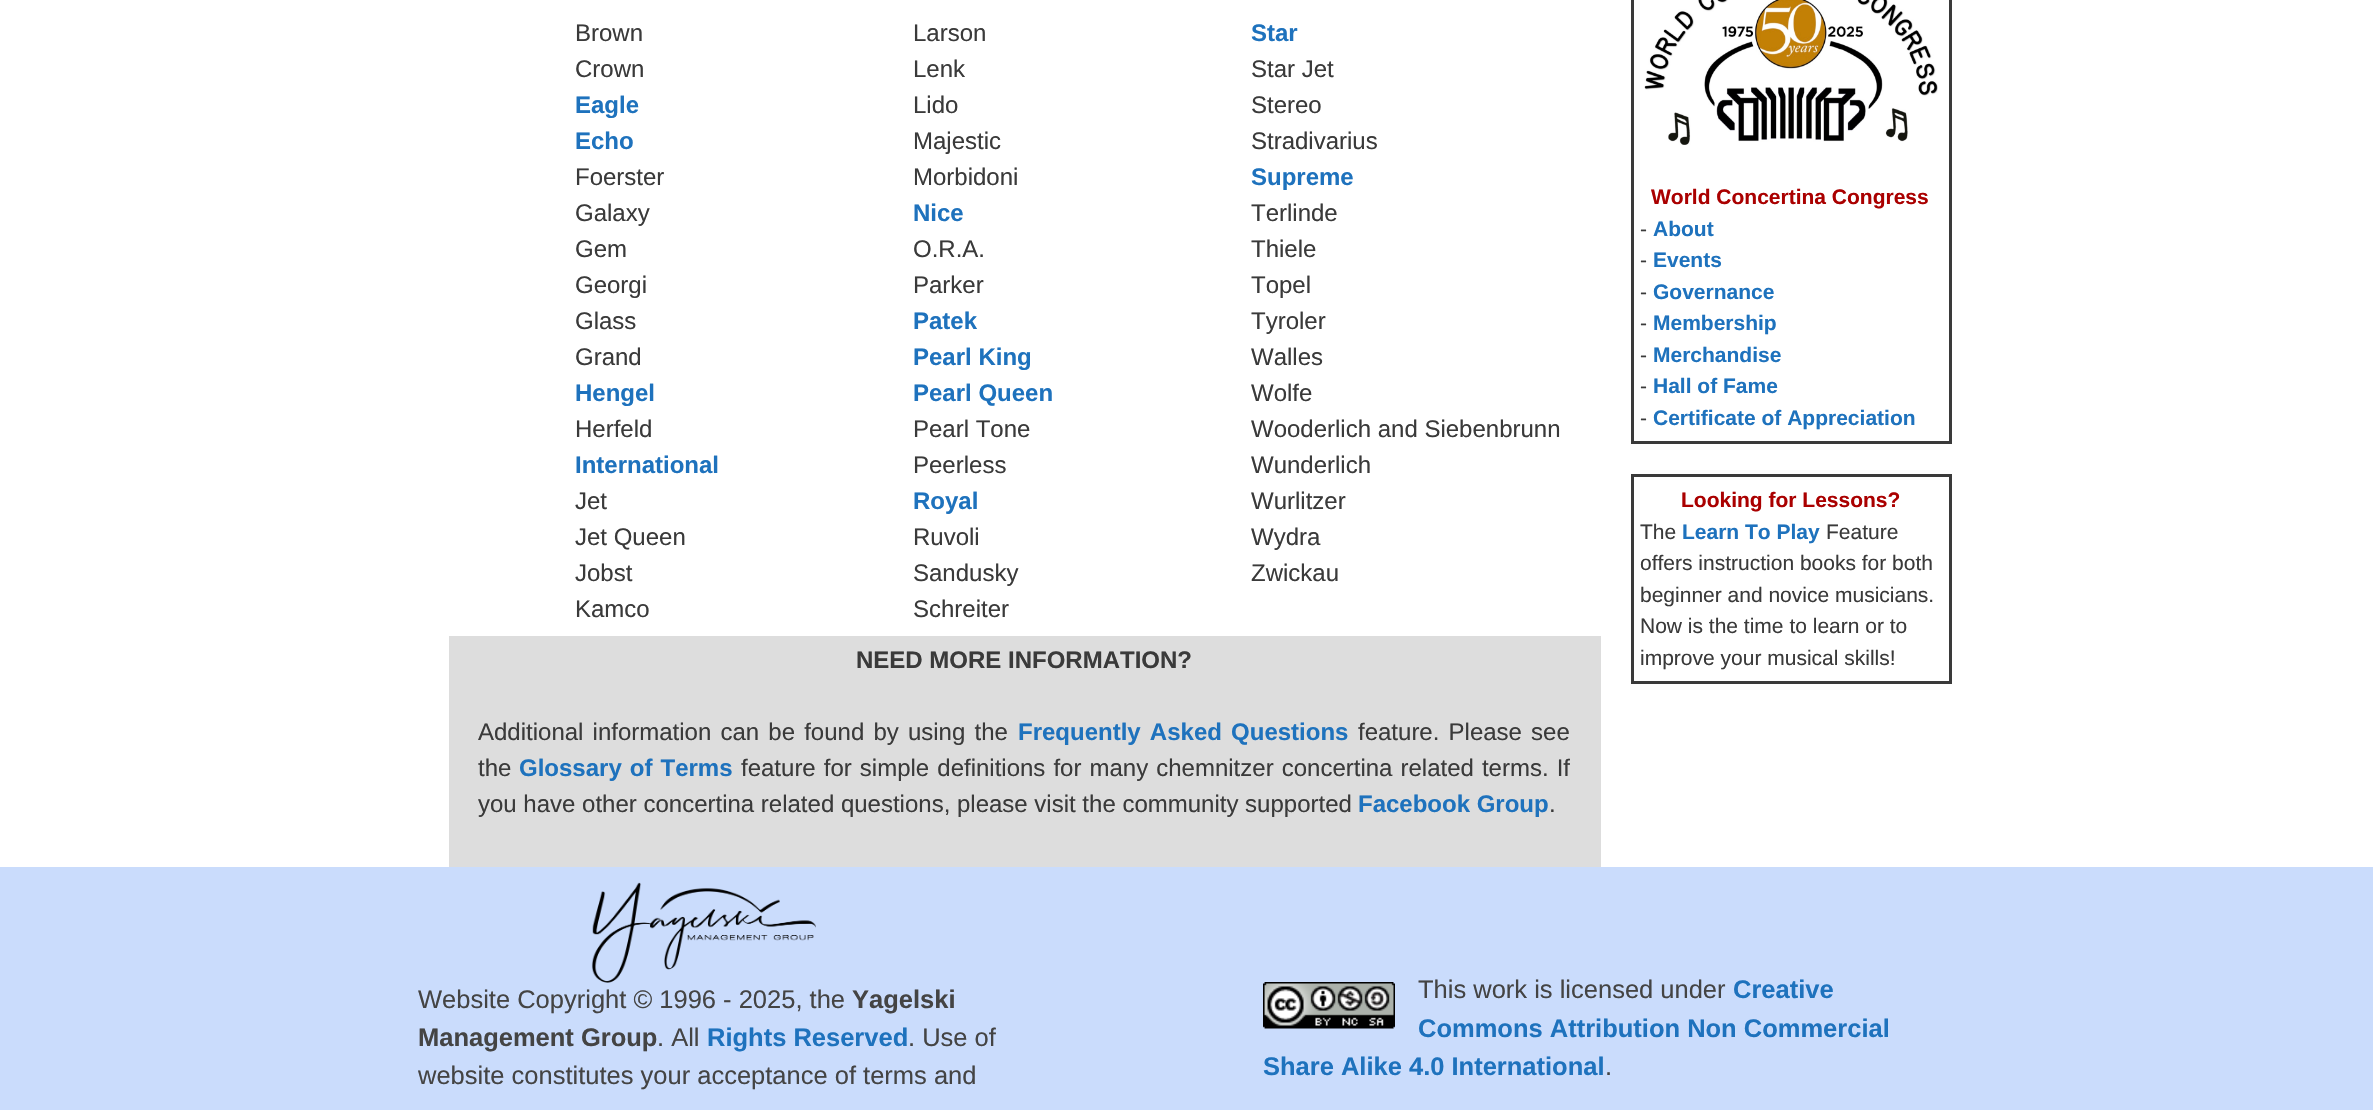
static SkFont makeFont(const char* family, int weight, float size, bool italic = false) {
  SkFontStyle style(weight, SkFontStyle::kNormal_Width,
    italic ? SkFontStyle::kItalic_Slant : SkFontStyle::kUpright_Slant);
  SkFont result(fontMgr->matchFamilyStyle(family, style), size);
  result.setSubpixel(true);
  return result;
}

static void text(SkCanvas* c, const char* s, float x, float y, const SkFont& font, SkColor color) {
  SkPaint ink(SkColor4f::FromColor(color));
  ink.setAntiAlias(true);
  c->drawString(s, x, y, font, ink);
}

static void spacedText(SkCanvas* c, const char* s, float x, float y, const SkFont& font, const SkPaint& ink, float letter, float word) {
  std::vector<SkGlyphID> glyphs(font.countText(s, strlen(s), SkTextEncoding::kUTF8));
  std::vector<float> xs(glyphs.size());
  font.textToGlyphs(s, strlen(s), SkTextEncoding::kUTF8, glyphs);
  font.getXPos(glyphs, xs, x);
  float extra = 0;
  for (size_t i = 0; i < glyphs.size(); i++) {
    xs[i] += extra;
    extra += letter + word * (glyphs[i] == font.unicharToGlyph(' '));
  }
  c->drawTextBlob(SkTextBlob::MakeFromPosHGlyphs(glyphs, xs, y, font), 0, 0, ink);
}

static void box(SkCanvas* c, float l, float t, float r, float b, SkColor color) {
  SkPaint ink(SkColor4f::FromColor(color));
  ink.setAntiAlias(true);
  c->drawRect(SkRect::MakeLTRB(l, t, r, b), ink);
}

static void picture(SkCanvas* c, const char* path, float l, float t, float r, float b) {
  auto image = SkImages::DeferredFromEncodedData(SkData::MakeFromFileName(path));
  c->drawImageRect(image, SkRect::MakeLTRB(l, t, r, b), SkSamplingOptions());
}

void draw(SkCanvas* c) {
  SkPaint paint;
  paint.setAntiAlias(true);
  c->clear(0xffffffff);
  SkFont face1 = makeFont("Liberation Sans", 400, 24);
  text(c, "Brown", 575, 41, face1, 0xff3a3a3a);
  text(c, "Crown", 575, 77, face1, 0xff3a3a3a);
  SkFont face2 = makeFont("Liberation Sans", 700, 24);
  text(c, "Eagle", 575, 113, face2, 0xff1e72bd);
  text(c, "Echo", 575, 149, face2, 0xff1e72bd);
  text(c, "Foerster", 575, 185, face1, 0xff3a3a3a);
  text(c, "Galaxy", 575, 221, face1, 0xff3a3a3a);
  text(c, "Gem", 575, 257, face1, 0xff3a3a3a);
  text(c, "Georgi", 575, 293, face1, 0xff3a3a3a);
  text(c, "Glass", 575, 329, face1, 0xff3a3a3a);
  text(c, "Grand", 575, 365, face1, 0xff3a3a3a);
  text(c, "Hengel", 575, 401, face2, 0xff1e72bd);
  text(c, "Herfeld", 575, 437, face1, 0xff3a3a3a);
  text(c, "International", 575, 473, face2, 0xff1e72bd);
  text(c, "Jet", 575, 509, face1, 0xff3a3a3a);
  text(c, "Jet Queen", 575, 545, face1, 0xff3a3a3a);
  text(c, "Jobst", 575, 581, face1, 0xff3a3a3a);
  text(c, "Kamco", 575, 617, face1, 0xff3a3a3a);
  text(c, "Larson", 913, 41, face1, 0xff3a3a3a);
  text(c, "Lenk", 913, 77, face1, 0xff3a3a3a);
  text(c, "Lido", 913, 113, face1, 0xff3a3a3a);
  text(c, "Majestic", 913, 149, face1, 0xff3a3a3a);
  text(c, "Morbidoni", 913, 185, face1, 0xff3a3a3a);
  text(c, "Nice", 913, 221, face2, 0xff1e72bd);
  text(c, "O.R.A.", 913, 257, face1, 0xff3a3a3a);
  text(c, "Parker", 913, 293, face1, 0xff3a3a3a);
  text(c, "Patek", 913, 329, face2, 0xff1e72bd);
  text(c, "Pearl King", 913, 365, face2, 0xff1e72bd);
  text(c, "Pearl Queen", 913, 401, face2, 0xff1e72bd);
  text(c, "Pearl Tone", 913, 437, face1, 0xff3a3a3a);
  text(c, "Peerless", 913, 473, face1, 0xff3a3a3a);
  text(c, "Royal", 913, 509, face2, 0xff1e72bd);
  text(c, "Ruvoli", 913, 545, face1, 0xff3a3a3a);
  text(c, "Sandusky", 913, 581, face1, 0xff3a3a3a);
  text(c, "Schreiter", 913, 617, face1, 0xff3a3a3a);
  text(c, "Star", 1251, 41, face2, 0xff1e72bd);
  text(c, "Star Jet", 1251, 77, face1, 0xff3a3a3a);
  text(c, "Stereo", 1251, 113, face1, 0xff3a3a3a);
  text(c, "Stradivarius", 1251, 149, face1, 0xff3a3a3a);
  text(c, "Supreme", 1251, 185, face2, 0xff1e72bd);
  text(c, "Terlinde", 1251, 221, face1, 0xff3a3a3a);
  text(c, "Thiele", 1251, 257, face1, 0xff3a3a3a);
  text(c, "Topel", 1251, 293, face1, 0xff3a3a3a);
  text(c, "Tyroler", 1251, 329, face1, 0xff3a3a3a);
  text(c, "Walles", 1251, 365, face1, 0xff3a3a3a);
  text(c, "Wolfe", 1251, 401, face1, 0xff3a3a3a);
  text(c, "Wooderlich and Siebenbrunn", 1251, 437, face1, 0xff3a3a3a);
  text(c, "Wunderlich", 1251, 473, face1, 0xff3a3a3a);
  text(c, "Wurlitzer", 1251, 509, face1, 0xff3a3a3a);
  text(c, "Wydra", 1251, 545, face1, 0xff3a3a3a);
  text(c, "Zwickau", 1251, 581, face1, 0xff3a3a3a);
  box(c, 449, 636, 1601, 867, 0xffdddddd);
  text(c, "NEED MORE INFORMATION?", 856, 668, face2, 0xff3a3a3a);
  paint.setColor(0xff3a3a3a);
  spacedText(c, "Additional information can be found by using the", 478, 740, face1, paint, 0, 2.5f);
  paint.setColor(0xff1e72bd);
  spacedText(c, "Frequently Asked Questions", 1018, 740, face2, paint, 0, 2.5f);
  paint.setColor(0xff3a3a3a);
  spacedText(c, "feature. Please see", 1358, 740, face1, paint, 0, 2.5f);
  text(c, "the", 478, 776, face1, 0xff3a3a3a);
  paint.setColor(0xff1e72bd);
  spacedText(c, "Glossary of Terms", 519, 776, face2, paint, 0, 1.4f);
  paint.setColor(0xff3a3a3a);
  spacedText(c, "feature for simple definitions for many chemnitzer concertina related terms. If", 741, 776, face1, paint, 0, 1.4f);
  text(c, "you have other concertina related questions, please visit the community supported", 478, 812, face1, 0xff3a3a3a);
  text(c, "Facebook Group", 1358, 812, face2, 0xff1e72bd);
  text(c, ".", 1549, 812, face1, 0xff3a3a3a);
  paint.setStyle(SkPaint::kStroke_Style);
  paint.setStrokeWidth(3);
  c->drawRect(SkRect::MakeLTRB(1632.5f, -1.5f, 1950.5f, 442.5f), paint);
  picture(c, "img_01.png", 1644, 0, 1938, 145);
  SkFont face3 = makeFont("Liberation Sans", 700, 21);
  text(c, "World Concertina Congress", 1651, 204, face3, 0xffaa0000);
  SkFont face4 = makeFont("Liberation Sans", 400, 21);
  text(c, "-", 1640, 236, face4, 0xff3a3a3a);
  text(c, "About", 1653, 236, face3, 0xff1e72bd);
  text(c, "-", 1640, 267, face4, 0xff3a3a3a);
  text(c, "Events", 1653, 267, face3, 0xff1e72bd);
  text(c, "-", 1640, 299, face4, 0xff3a3a3a);
  text(c, "Governance", 1653, 299, face3, 0xff1e72bd);
  text(c, "-", 1640, 330, face4, 0xff3a3a3a);
  text(c, "Membership", 1653, 330, face3, 0xff1e72bd);
  text(c, "-", 1640, 362, face4, 0xff3a3a3a);
  text(c, "Merchandise", 1653, 362, face3, 0xff1e72bd);
  text(c, "-", 1640, 393, face4, 0xff3a3a3a);
  text(c, "Hall of Fame", 1653, 393, face3, 0xff1e72bd);
  text(c, "-", 1640, 425, face4, 0xff3a3a3a);
  text(c, "Certificate of Appreciation", 1653, 425, face3, 0xff1e72bd);
  c->drawRect(SkRect::MakeLTRB(1632.5f, 475.5f, 1950.5f, 682.5f), paint);
  text(c, "Looking for Lessons?", 1681, 507, face3, 0xffaa0000);
  text(c, "The", 1640, 539, face4, 0xff3a3a3a);
  text(c, "Learn To Play", 1682, 539, face3, 0xff1e72bd);
  text(c, "Feature", 1826, 539, face4, 0xff3a3a3a);
  text(c, "offers instruction books for both", 1640, 570, face4, 0xff3a3a3a);
  text(c, "beginner and novice musicians.", 1640, 602, face4, 0xff3a3a3a);
  text(c, "Now is the time to learn or to", 1640, 633, face4, 0xff3a3a3a);
  text(c, "improve your musical skills!", 1640, 665, face4, 0xff3a3a3a);
  box(c, 0, 867, 2373, 1110, 0xffcadcfc);
  picture(c, "img_02.png", 591, 882, 816, 983);
  SkFont face5 = makeFont("Liberation Sans", 400, 25.5f);
  text(c, "Website Copyright © 1996 - 2025, the", 418, 1008, face5, 0xff444444);
  SkFont face6 = makeFont("Liberation Sans", 700, 25.5f);
  text(c, "Yagelski", 852, 1008, face6, 0xff444444);
  text(c, "Management Group", 418, 1046, face6, 0xff444444);
  text(c, ". All", 657, 1046, face5, 0xff444444);
  text(c, "Rights Reserved", 707, 1046, face6, 0xff1e72bd);
  text(c, ". Use of", 908, 1046, face5, 0xff444444);
  text(c, "website constitutes your acceptance of terms and", 418, 1084, face5, 0xff444444);
  picture(c, "img_03.png", 1263, 982, 1395, 1029);
  text(c, "This work is licensed under", 1418, 998, face5, 0xff444444);
  text(c, "Creative", 1733, 998, face6, 0xff1e72bd);
  text(c, "Commons Attribution Non Commercial", 1418, 1037, face6, 0xff1e72bd);
  text(c, "Share Alike 4.0 International", 1263, 1075, face6, 0xff1e72bd);
  text(c, ".", 1605, 1075, face5, 0xff444444);
}
